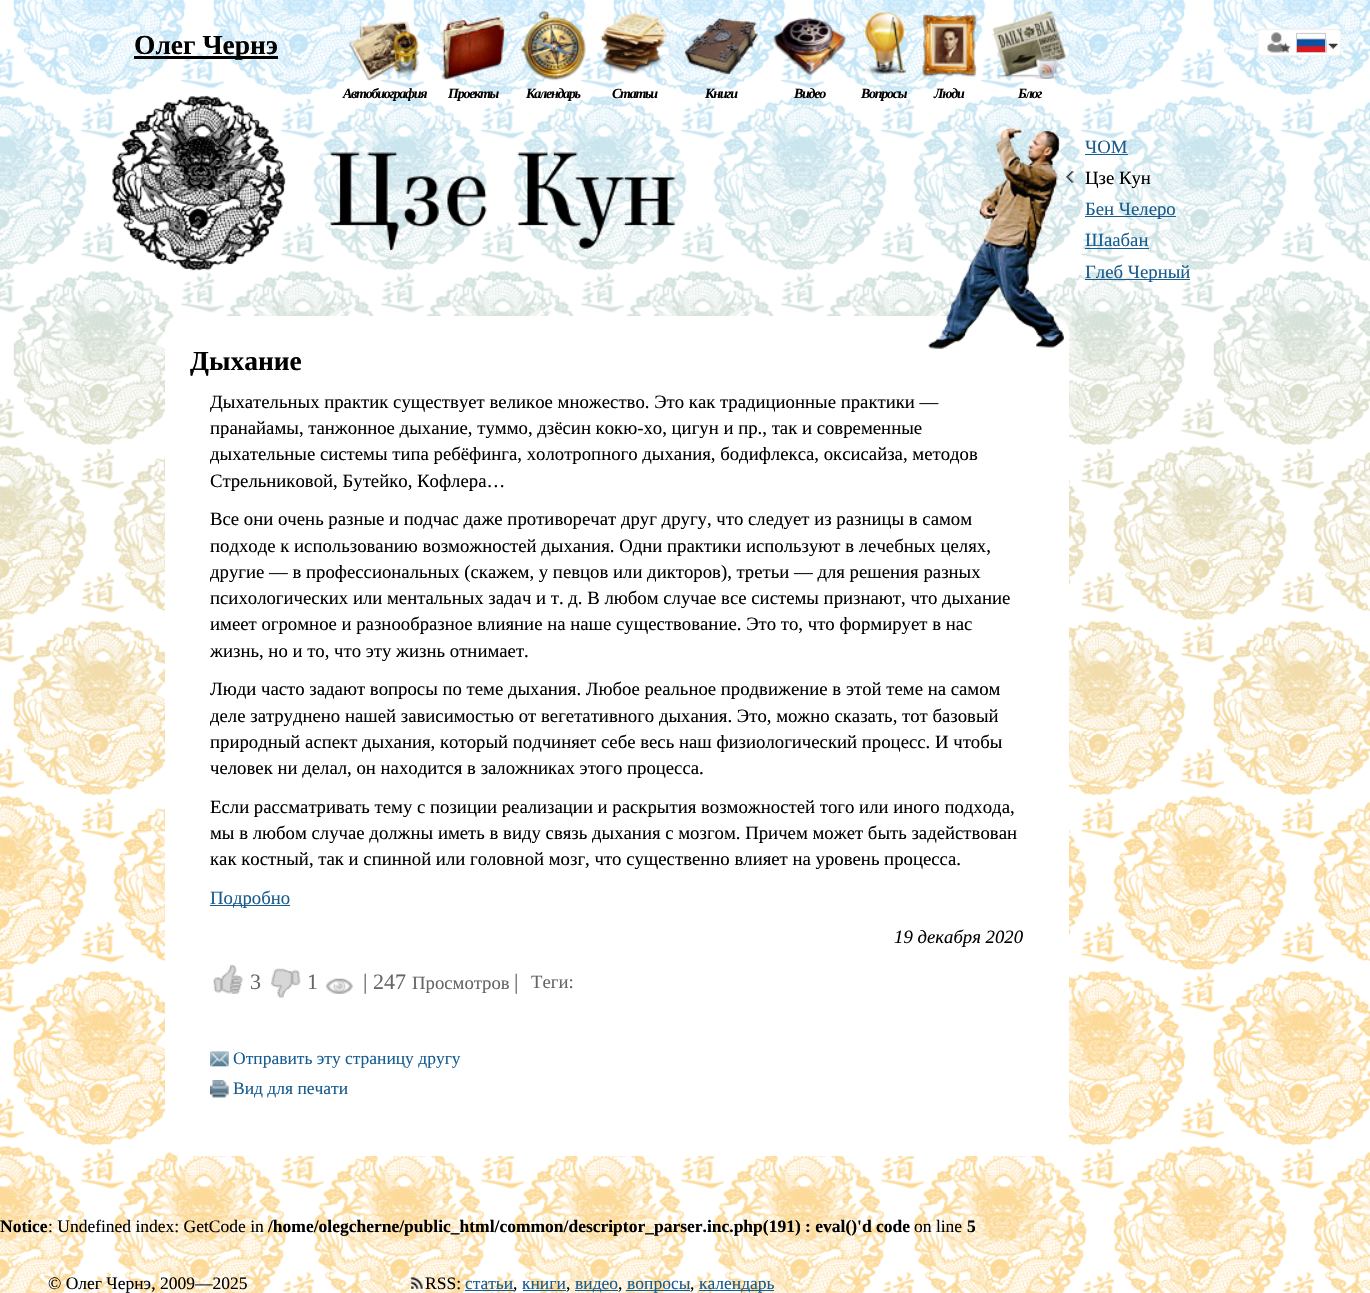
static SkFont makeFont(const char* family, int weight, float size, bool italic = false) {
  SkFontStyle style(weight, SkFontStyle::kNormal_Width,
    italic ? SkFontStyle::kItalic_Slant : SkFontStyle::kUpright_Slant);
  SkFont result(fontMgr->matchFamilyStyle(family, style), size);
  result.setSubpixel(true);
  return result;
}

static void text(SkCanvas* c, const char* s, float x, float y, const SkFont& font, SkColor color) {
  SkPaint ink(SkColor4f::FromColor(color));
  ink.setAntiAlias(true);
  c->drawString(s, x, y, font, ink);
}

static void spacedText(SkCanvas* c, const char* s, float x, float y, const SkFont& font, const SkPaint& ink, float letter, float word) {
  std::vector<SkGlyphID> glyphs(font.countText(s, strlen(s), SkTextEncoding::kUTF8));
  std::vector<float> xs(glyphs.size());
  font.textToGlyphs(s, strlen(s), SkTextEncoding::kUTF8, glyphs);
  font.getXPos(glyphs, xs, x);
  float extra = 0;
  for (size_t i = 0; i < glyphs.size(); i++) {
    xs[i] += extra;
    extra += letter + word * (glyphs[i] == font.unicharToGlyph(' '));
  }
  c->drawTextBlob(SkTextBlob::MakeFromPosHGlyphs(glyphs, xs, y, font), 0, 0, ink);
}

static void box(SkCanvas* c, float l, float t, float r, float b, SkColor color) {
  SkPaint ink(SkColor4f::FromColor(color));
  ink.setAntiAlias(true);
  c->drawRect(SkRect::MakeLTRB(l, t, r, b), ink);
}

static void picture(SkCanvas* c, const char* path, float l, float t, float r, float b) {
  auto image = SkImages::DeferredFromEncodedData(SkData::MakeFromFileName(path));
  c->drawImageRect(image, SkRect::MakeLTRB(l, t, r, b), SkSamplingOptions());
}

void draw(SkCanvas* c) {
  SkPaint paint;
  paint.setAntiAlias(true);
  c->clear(0xfffcd996);
  picture(c, "img_01.png", 0, 0, 1370, 874);
  picture(c, "img_02.png", 0, 0, 1370, 1293);
  box(c, 134, 56, 278, 59, 0xff000000);
  SkFont face1 = makeFont("Liberation Serif", 700, 27.5f);
  text(c, "Олег Чернэ", 134, 54, face1, 0xff000000);
  picture(c, "img_03.png", 1257, 28, 1342, 57);
  picture(c, "img_04.png", 1296, 32, 1327, 53);
  paint.setStyle(SkPaint::kStroke_Style);
  paint.setStrokeWidth(1);
  paint.setColor(0xffcccccc);
  c->drawRect(SkRect::MakeLTRB(1296.5f, 33.5f, 1325.5f, 52.5f), paint);
  picture(c, "img_05.png", 349, 21, 420, 81);
  SkFont face2 = makeFont("Liberation Serif", 700, 14, true);
  paint.setStyle(SkPaint::kFill_Style);
  paint.setColor(0xff000000);
  spacedText(c, "Автобиография", 343, 98, face2, paint, -1.25f, 0);
  picture(c, "img_06.png", 441, 17, 505, 80);
  spacedText(c, "Проекты", 448, 98, face2, paint, -1.25f, 0);
  picture(c, "img_07.png", 520, 11, 586, 81);
  spacedText(c, "Календарь", 526, 98, face2, paint, -1.25f, 0);
  picture(c, "img_08.png", 600, 12, 669, 74);
  spacedText(c, "Статьи", 612, 98, face2, paint, -1.25f, 0);
  picture(c, "img_09.png", 683, 17, 758, 75);
  spacedText(c, "Книги", 705, 98, face2, paint, -1.25f, 0);
  picture(c, "img_10.png", 773, 17, 846, 76);
  spacedText(c, "Видео", 794, 98, face2, paint, -1.25f, 0);
  picture(c, "img_11.png", 863, 11, 907, 75);
  spacedText(c, "Вопросы", 861, 98, face2, paint, -1.25f, 0);
  picture(c, "img_12.png", 922, 14, 977, 77);
  spacedText(c, "Люди", 934, 98, face2, paint, -1.25f, 0);
  picture(c, "img_13.png", 992, 11, 1067, 79);
  spacedText(c, "Блог", 1018, 98, face2, paint, -1.25f, 0);
  picture(c, "img_14.png", 112, 95, 287, 273);
  picture(c, "img_15.png", 330, 152, 676, 250);
  box(c, 165, 330, 1069, 1143, 0xffffffff);
  box(c, 218, 316, 1055, 330, 0xffffffff);
  picture(c, "img_19.png", 1055, 316, 1069, 330);
  picture(c, "img_16.png", 928, 128, 1065, 349);
  SkFont face3 = makeFont("Liberation Serif", 400, 18.75f);
  text(c, "ЧОМ", 1085, 153, face3, 0xff175c91);
  box(c, 1085, 154, 1128, 155, 0xff175c91);
  picture(c, "img_17.png", 1066, 171, 1074, 183);
  text(c, "Цзе Кун", 1085, 184, face3, 0xff000000);
  box(c, 1085, 216, 1176, 217, 0xff175c91);
  text(c, "Бен Челеро", 1085, 215, face3, 0xff175c91);
  text(c, "Шаабан", 1085, 246, face3, 0xff175c91);
  box(c, 1085, 248, 1149, 249, 0xff175c91);
  box(c, 1085, 279, 1190, 280, 0xff175c91);
  text(c, "Глеб Черный", 1085, 278, face3, 0xff175c91);
  picture(c, "img_18.png", 165, 320, 179, 330);
  text(c, "Дыхание", 190, 370, face1, 0xff000000);
  text(c, "Дыхательных практик существует великое множество. Это как традиционные практики —", 210, 408, face3, 0xff000000);
  text(c, "пранайамы, танжонное дыхание, туммо, дзёсин кокю-хо, цигун и пр., так и современные", 210, 434, face3, 0xff000000);
  text(c, "дыхательные системы типа ребёфинга, холотропного дыхания, бодифлекса, оксисайза, методов", 210, 460, face3, 0xff000000);
  text(c, "Стрельниковой, Бутейко, Кофлера…", 210, 487, face3, 0xff000000);
  text(c, "Все они очень разные и подчас даже противоречат друг другу, что следует из разницы в самом", 210, 525, face3, 0xff000000);
  text(c, "подходе к использованию возможностей дыхания. Одни практики используют в лечебных целях,", 210, 552, face3, 0xff000000);
  text(c, "другие — в профессиональных (скажем, у певцов или дикторов), третьи — для решения разных", 210, 578, face3, 0xff000000);
  text(c, "психологических или ментальных задач и т. д. В любом случае все системы признают, что дыхание", 210, 604, face3, 0xff000000);
  text(c, "имеет огромное и разнообразное влияние на наше существование. Это то, что формирует в нас", 210, 630, face3, 0xff000000);
  text(c, "жизнь, но и то, что эту жизнь отнимает.", 210, 657, face3, 0xff000000);
  text(c, "Люди часто задают вопросы по теме дыхания. Любое реальное продвижение в этой теме на самом", 210, 695, face3, 0xff000000);
  text(c, "деле затруднено нашей зависимостью от вегетативного дыхания. Это, можно сказать, тот базовый", 210, 722, face3, 0xff000000);
  text(c, "природный аспект дыхания, который подчиняет себе весь наш физиологический процесс. И чтобы", 210, 748, face3, 0xff000000);
  text(c, "человек ни делал, он находится в заложниках этого процесса.", 210, 774, face3, 0xff000000);
  text(c, "Если рассматривать тему с позиции реализации и раскрытия возможностей того или иного подхода,", 210, 813, face3, 0xff000000);
  text(c, "мы в любом случае должны иметь в виду связь дыхания с мозгом. Причем может быть задействован", 210, 839, face3, 0xff000000);
  text(c, "как костный, так и спинной или головной мозг, что существенно влияет на уровень процесса.", 210, 865, face3, 0xff000000);
  box(c, 210, 905, 290, 906, 0xff175c91);
  text(c, "Подробно", 210, 904, face3, 0xff175c91);
  SkFont face4 = makeFont("Liberation Serif", 400, 18.75f, true);
  text(c, "19 декабря 2020", 894, 943, face4, 0xff000000);
  picture(c, "img_20.png", 213, 964, 243, 994);
  SkFont face5 = makeFont("Liberation Serif", 400, 22);
  text(c, "3", 250, 989, face5, 0xff666666);
  picture(c, "img_21.png", 271, 968, 301, 998);
  text(c, "1", 307, 989, face5, 0xff666666);
  picture(c, "img_22.png", 326, 978, 353, 994);
  text(c, "| 247", 363, 989, face5, 0xff666666);
  text(c, "Просмотров", 412, 989, face3, 0xff666666);
  text(c, "|", 514, 989, face5, 0xff666666);
  text(c, "Теги:", 531, 988, face3, 0xff666666);
  picture(c, "img_23.png", 210, 1051, 229, 1067);
  SkFont face6 = makeFont("Liberation Serif", 400, 17.5f);
  text(c, "Отправить эту страницу другу", 233, 1064, face6, 0xff175c91);
  picture(c, "img_24.png", 210, 1080, 229, 1098);
  text(c, "Вид для печати", 233, 1094, face6, 0xff175c91);
  picture(c, "img_25.png", 169, 1151, 179, 1157);
  box(c, 179, 1143, 1043, 1156, 0xffffffff);
  SkFont face7 = makeFont("Liberation Serif", 700, 17.5f);
  text(c, "Notice", 0, 1232, face7, 0xff000000);
  text(c, ": Undefined index: GetCode in", 48, 1232, face6, 0xff000000);
  text(c, "/home/olegcherne/public_html/common/descriptor_parser.inc.php(191) : eval()'d code", 268, 1232, face7, 0xff000000);
  text(c, "on line", 914, 1232, face6, 0xff000000);
  text(c, "5", 967, 1232, face7, 0xff000000);
  text(c, "© Олег Чернэ, 2009—2025", 48, 1289, face6, 0xff000000);
  picture(c, "img_26.png", 411, 1277, 423, 1289);
  text(c, "RSS:", 425, 1289, face6, 0xff000000);
  text(c, "статьи", 465, 1289, face6, 0xff175c91);
  box(c, 465, 1290, 514, 1291, 0xff175c91);
  text(c, "книги", 522, 1289, face6, 0xff175c91);
  box(c, 523, 1290, 566, 1291, 0xff175c91);
  box(c, 575, 1290, 618, 1291, 0xff175c91);
  text(c, "видео", 575, 1289, face6, 0xff175c91);
  box(c, 626, 1290, 690, 1291, 0xff175c91);
  text(c, "вопросы", 627, 1289, face6, 0xff175c91);
  box(c, 699, 1290, 774, 1291, 0xff175c91);
  text(c, "календарь", 699, 1289, face6, 0xff175c91);
  text(c, ",", 513, 1289, face6, 0xff000000);
  text(c, ",", 566, 1289, face6, 0xff000000);
  text(c, ",", 618, 1289, face6, 0xff000000);
  text(c, ",", 690, 1289, face6, 0xff000000);
}
